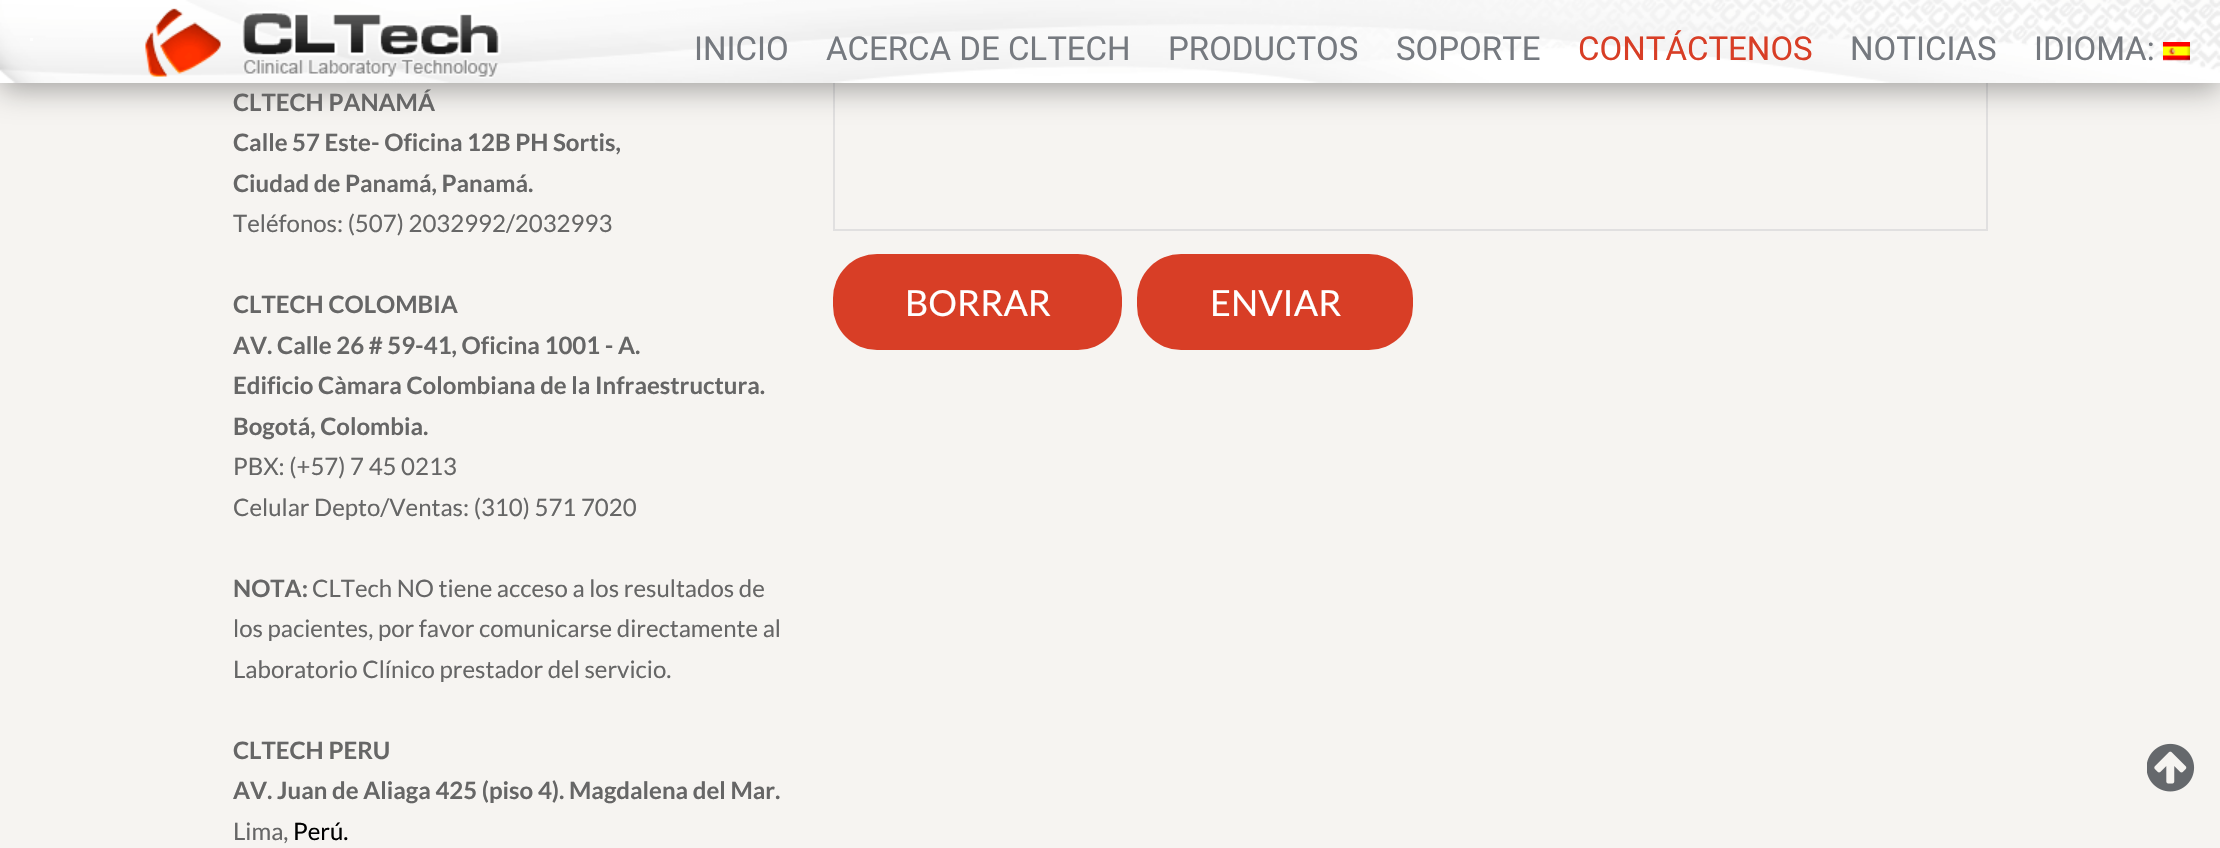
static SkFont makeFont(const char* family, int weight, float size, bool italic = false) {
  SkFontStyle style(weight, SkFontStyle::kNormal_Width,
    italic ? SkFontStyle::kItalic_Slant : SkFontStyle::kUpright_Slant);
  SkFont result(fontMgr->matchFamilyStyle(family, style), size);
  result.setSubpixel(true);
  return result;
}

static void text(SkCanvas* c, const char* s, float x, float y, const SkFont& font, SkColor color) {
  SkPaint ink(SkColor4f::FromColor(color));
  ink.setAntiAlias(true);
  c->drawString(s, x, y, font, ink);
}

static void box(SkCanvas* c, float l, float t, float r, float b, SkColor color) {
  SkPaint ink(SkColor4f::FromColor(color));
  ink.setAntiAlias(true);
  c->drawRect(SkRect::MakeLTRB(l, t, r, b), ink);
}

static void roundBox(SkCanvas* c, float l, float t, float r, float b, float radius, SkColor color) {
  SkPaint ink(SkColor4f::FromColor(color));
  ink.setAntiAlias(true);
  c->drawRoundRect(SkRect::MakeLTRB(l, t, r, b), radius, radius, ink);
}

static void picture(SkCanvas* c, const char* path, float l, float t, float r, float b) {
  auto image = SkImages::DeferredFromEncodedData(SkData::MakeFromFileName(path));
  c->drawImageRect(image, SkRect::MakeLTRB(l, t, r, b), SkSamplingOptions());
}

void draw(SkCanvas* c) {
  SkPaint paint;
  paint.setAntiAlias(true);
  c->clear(0xfff6f4f1);
  paint.setStyle(SkPaint::kStroke_Style);
  paint.setStrokeWidth(2);
  paint.setColor(0xffe1e0e0);
  c->drawRect(SkRect::MakeLTRB(834, -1, 1987, 230), paint);
  paint.setStyle(SkPaint::kFill_Style);
  paint.setColor(0x59000000);
  paint.setMaskFilter(SkMaskFilter::MakeBlur(kNormal_SkBlurStyle, 15));
  c->drawRect(SkRect::MakeLTRB(0, 6, 2220, 89), paint);
  paint.setMaskFilter(nullptr);
  picture(c, "img_01.png", 0, 0, 2220, 83);
  box(c, 30, 38, 33, 41, 0xfffefefe);
  SkFont face1 = makeFont("Roboto", 400, 33);
  text(c, "INICIO", 694, 60, face1, 0xff75797f);
  text(c, "ACERCA DE CLTECH", 826, 60, face1, 0xff75797f);
  text(c, "PRODUCTOS", 1168, 60, face1, 0xff75797f);
  text(c, "SOPORTE", 1396, 60, face1, 0xff75797f);
  text(c, "CONTÁCTENOS", 1578, 60, face1, 0xffd83e26);
  text(c, "NOTICIAS", 1850, 60, face1, 0xff75797f);
  text(c, "IDIOMA:", 2034, 60, face1, 0xff75797f);
  picture(c, "img_02.png", 2163, 42, 2190, 61);
  SkFont face2 = makeFont("Lato", 700, 24);
  text(c, "CLTECH PANAMÁ", 233, 111, face2, 0xff666666);
  text(c, "Calle 57 Este- Oficina 12B PH Sortis,", 233, 151, face2, 0xff666666);
  text(c, "Ciudad de Panamá, Panamá.", 233, 192, face2, 0xff666666);
  SkFont face3 = makeFont("Lato", 400, 24);
  text(c, "Teléfonos: (507) 2032992/2032993", 233, 232, face3, 0xff666666);
  text(c, "CLTECH COLOMBIA", 233, 313, face2, 0xff666666);
  text(c, "AV. Calle 26 # 59-41, Oficina 1001 - A.", 233, 354, face2, 0xff666666);
  text(c, "Edificio Càmara Colombiana de la Infraestructura.", 233, 394, face2, 0xff666666);
  text(c, "Bogotá, Colombia.", 233, 435, face2, 0xff666666);
  text(c, "PBX: (+57) 7 45 0213", 233, 475, face3, 0xff666666);
  text(c, "Celular Depto/Ventas: (310) 571 7020", 233, 516, face3, 0xff666666);
  text(c, "NOTA:", 233, 597, face2, 0xff666666);
  text(c, "CLTech NO tiene acceso a los resultados de", 312, 597, face3, 0xff666666);
  text(c, "los pacientes, por favor comunicarse directamente al", 233, 637, face3, 0xff666666);
  text(c, "Laboratorio Clínico prestador del servicio.", 233, 678, face3, 0xff666666);
  text(c, "CLTECH PERU", 233, 759, face2, 0xff666666);
  text(c, "AV. Juan de Aliaga 425 (piso 4). Magdalena del Mar.", 233, 799, face2, 0xff666666);
  text(c, "Lima,", 233, 840, face3, 0xff666666);
  text(c, "Perú.", 293, 840, face3, 0xff000000);
  roundBox(c, 833, 254, 1122, 350, 44, 0xffd83e26);
  SkFont face4 = makeFont("Lato", 400, 36);
  text(c, "BORRAR", 905, 316, face4, 0xffffffff);
  roundBox(c, 1137, 254, 1413, 350, 44, 0xffd83e26);
  text(c, "ENVIAR", 1210, 316, face4, 0xffffffff);
  picture(c, "img_03.png", 2147, 743, 2195, 792);
}
